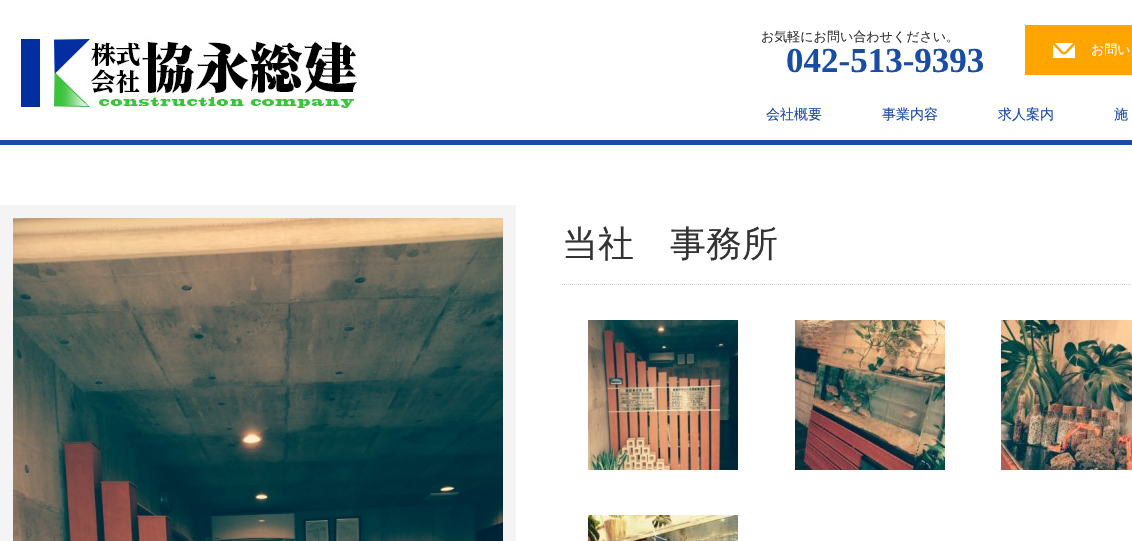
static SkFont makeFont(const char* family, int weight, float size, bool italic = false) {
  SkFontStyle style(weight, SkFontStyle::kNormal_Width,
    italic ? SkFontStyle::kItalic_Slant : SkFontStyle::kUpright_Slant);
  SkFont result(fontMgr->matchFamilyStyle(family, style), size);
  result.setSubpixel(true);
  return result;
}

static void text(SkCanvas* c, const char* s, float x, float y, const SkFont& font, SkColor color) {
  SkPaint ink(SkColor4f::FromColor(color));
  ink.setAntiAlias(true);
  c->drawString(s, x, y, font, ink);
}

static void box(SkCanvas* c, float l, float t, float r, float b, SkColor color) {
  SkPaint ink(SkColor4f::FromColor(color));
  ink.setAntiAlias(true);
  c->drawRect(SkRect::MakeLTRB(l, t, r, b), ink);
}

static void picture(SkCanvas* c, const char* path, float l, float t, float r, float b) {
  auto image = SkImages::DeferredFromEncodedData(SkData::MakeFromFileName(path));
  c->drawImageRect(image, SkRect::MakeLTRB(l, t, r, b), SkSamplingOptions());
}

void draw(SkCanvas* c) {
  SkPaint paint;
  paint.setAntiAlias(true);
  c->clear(0xffffffff);
  box(c, 0, 140, 1132, 145, 0xff184da3);
  picture(c, "img_01.png", 14, 35, 358, 114);
  SkFont face1 = makeFont("WenQuanYi Zen Hei", 500, 13);
  text(c, "お気軽にお問い合わせください。", 761, 41, face1, 0xff333333);
  SkFont face2 = makeFont("Liberation Serif", 700, 35);
  text(c, "042-513-9393", 786, 72, face2, 0xff184da3);
  box(c, 1025, 25, 1132, 75, 0xffffa500);
  picture(c, "img_02.png", 1053, 43, 1075, 58);
  text(c, "お問い", 1091, 54, face1, 0xffffffff);
  SkFont face3 = makeFont("WenQuanYi Zen Hei", 500, 14);
  text(c, "会社概要", 766, 119, face3, 0xff184da3);
  text(c, "事業内容", 882, 119, face3, 0xff184da3);
  text(c, "求人案内", 998, 119, face3, 0xff184da3);
  text(c, "施", 1114, 119, face3, 0xff184da3);
  paint.setStyle(SkPaint::kStroke_Style);
  paint.setStrokeWidth(13);
  paint.setColor(0xfff4f4f4);
  c->drawRect(SkRect::MakeLTRB(6.5f, 211.5f, 509.5f, 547.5f), paint);
  picture(c, "img_03.png", 13, 218, 503, 541);
  paint.setStrokeWidth(1);
  paint.setColor(0xffcccccc);
  paint.setPathEffect(SkDashPathEffect::Make({{1, 1}}, 0));
  c->drawPath(SkPathBuilder().moveTo(562, 284.5f).lineTo(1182, 284.5f).detach(), paint);
  paint.setPathEffect(nullptr);
  SkFont face4 = makeFont("WenQuanYi Zen Hei", 500, 36);
  text(c, "当社　事務所", 562, 256, face4, 0xff333333);
  picture(c, "img_04.png", 588, 320, 738, 470);
  picture(c, "img_05.png", 795, 320, 945, 470);
  picture(c, "img_06.png", 1001, 320, 1132, 470);
  picture(c, "img_07.png", 588, 515, 738, 541);
}
